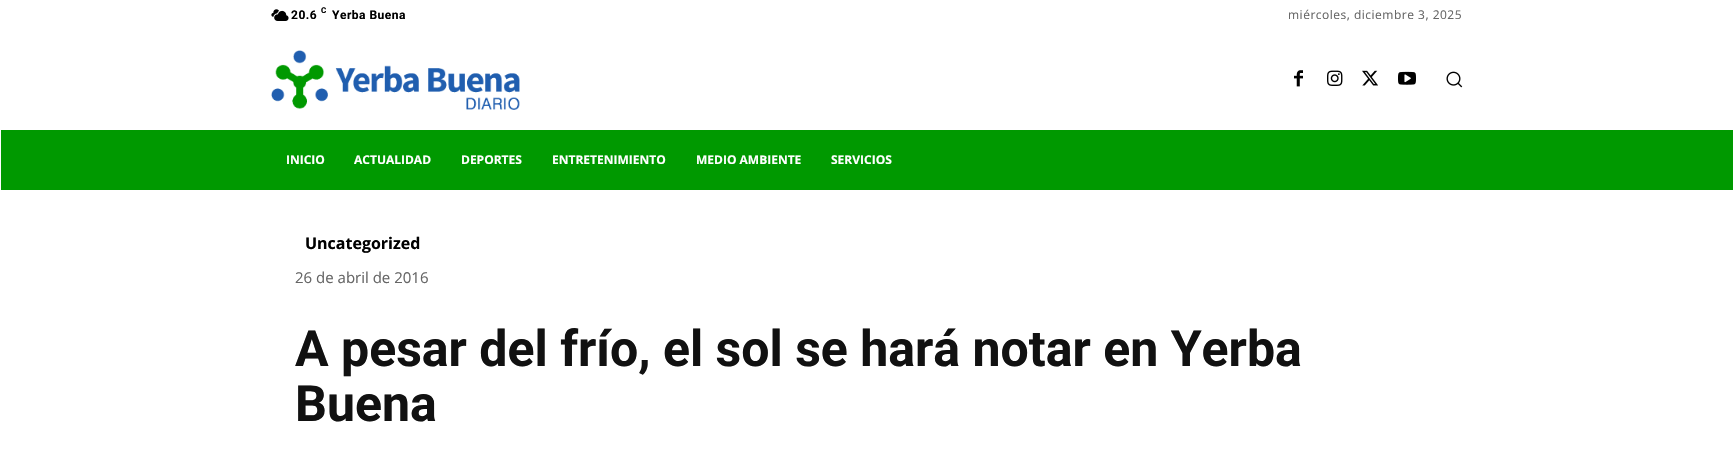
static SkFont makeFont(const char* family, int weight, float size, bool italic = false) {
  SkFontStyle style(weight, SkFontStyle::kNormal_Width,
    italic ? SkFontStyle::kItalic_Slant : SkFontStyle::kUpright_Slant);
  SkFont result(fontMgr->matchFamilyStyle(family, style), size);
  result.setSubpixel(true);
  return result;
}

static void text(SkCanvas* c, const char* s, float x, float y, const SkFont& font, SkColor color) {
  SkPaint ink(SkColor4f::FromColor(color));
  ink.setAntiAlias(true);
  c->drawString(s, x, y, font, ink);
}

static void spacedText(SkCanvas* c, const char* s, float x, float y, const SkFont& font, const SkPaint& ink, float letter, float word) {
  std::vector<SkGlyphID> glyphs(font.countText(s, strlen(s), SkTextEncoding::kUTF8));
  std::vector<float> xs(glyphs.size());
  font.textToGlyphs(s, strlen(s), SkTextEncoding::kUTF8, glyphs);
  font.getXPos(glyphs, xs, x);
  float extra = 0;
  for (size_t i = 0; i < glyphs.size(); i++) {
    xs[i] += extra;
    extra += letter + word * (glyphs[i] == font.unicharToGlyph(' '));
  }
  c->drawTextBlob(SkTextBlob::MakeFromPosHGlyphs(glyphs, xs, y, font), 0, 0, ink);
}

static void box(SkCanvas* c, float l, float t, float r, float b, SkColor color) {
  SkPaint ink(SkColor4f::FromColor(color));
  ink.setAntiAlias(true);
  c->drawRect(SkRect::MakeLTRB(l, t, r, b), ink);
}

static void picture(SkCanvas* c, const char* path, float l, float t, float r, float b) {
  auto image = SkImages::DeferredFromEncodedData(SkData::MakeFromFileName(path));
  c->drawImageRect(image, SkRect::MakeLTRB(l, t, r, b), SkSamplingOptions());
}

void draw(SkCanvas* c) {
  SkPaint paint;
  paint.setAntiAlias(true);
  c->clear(0xffffffff);
  picture(c, "img_01.png", 271, 9, 289, 21);
  SkFont face1 = makeFont("Roboto", 700, 12);
  paint.setColor(0xff000000);
  spacedText(c, "20.6", 291, 19, face1, paint, 0.5f, 0);
  SkFont face2 = makeFont("Roboto", 700, 8);
  spacedText(c, "C", 321, 13, face2, paint, 0.5f, 0);
  spacedText(c, "Yerba Buena", 332, 19, face1, paint, 0.5f, 0);
  SkFont face3 = makeFont("Open Sans", 400, 12);
  paint.setColor(0xff666666);
  spacedText(c, "miércoles, diciembre 3, 2025", 1288, 19, face3, paint, 0.5f, 0);
  picture(c, "img_02.png", 271, 50, 520, 110);
  picture(c, "img_03.png", 1294, 70, 1303, 87);
  picture(c, "img_04.png", 1327, 70, 1343, 86);
  picture(c, "img_05.png", 1362, 70, 1378, 86);
  picture(c, "img_06.png", 1398, 71, 1416, 85);
  picture(c, "img_07.png", 1446, 71, 1463, 88);
  box(c, 1, 130, 1733, 190, 0xff009900);
  SkFont face4 = makeFont("Open Sans", 700, 12);
  text(c, "INICIO", 286, 164, face4, 0xffffffff);
  text(c, "ACTUALIDAD", 354, 164, face4, 0xffffffff);
  text(c, "DEPORTES", 461, 164, face4, 0xffffffff);
  text(c, "ENTRETENIMIENTO", 552, 164, face4, 0xffffffff);
  text(c, "MEDIO AMBIENTE", 696, 164, face4, 0xffffffff);
  text(c, "SERVICIOS", 831, 164, face4, 0xffffffff);
  SkFont face5 = makeFont("Open Sans", 700, 16);
  text(c, "Uncategorized", 305, 249, face5, 0xff000000);
  SkFont face6 = makeFont("Open Sans", 400, 15);
  text(c, "26 de abril de 2016", 295, 283, face6, 0xff666666);
  SkFont face7 = makeFont("Roboto", 700, 50);
  text(c, "A pesar del frío, el sol se hará notar en Yerba", 295, 366, face7, 0xff111111);
  text(c, "Buena", 295, 421, face7, 0xff111111);
}
